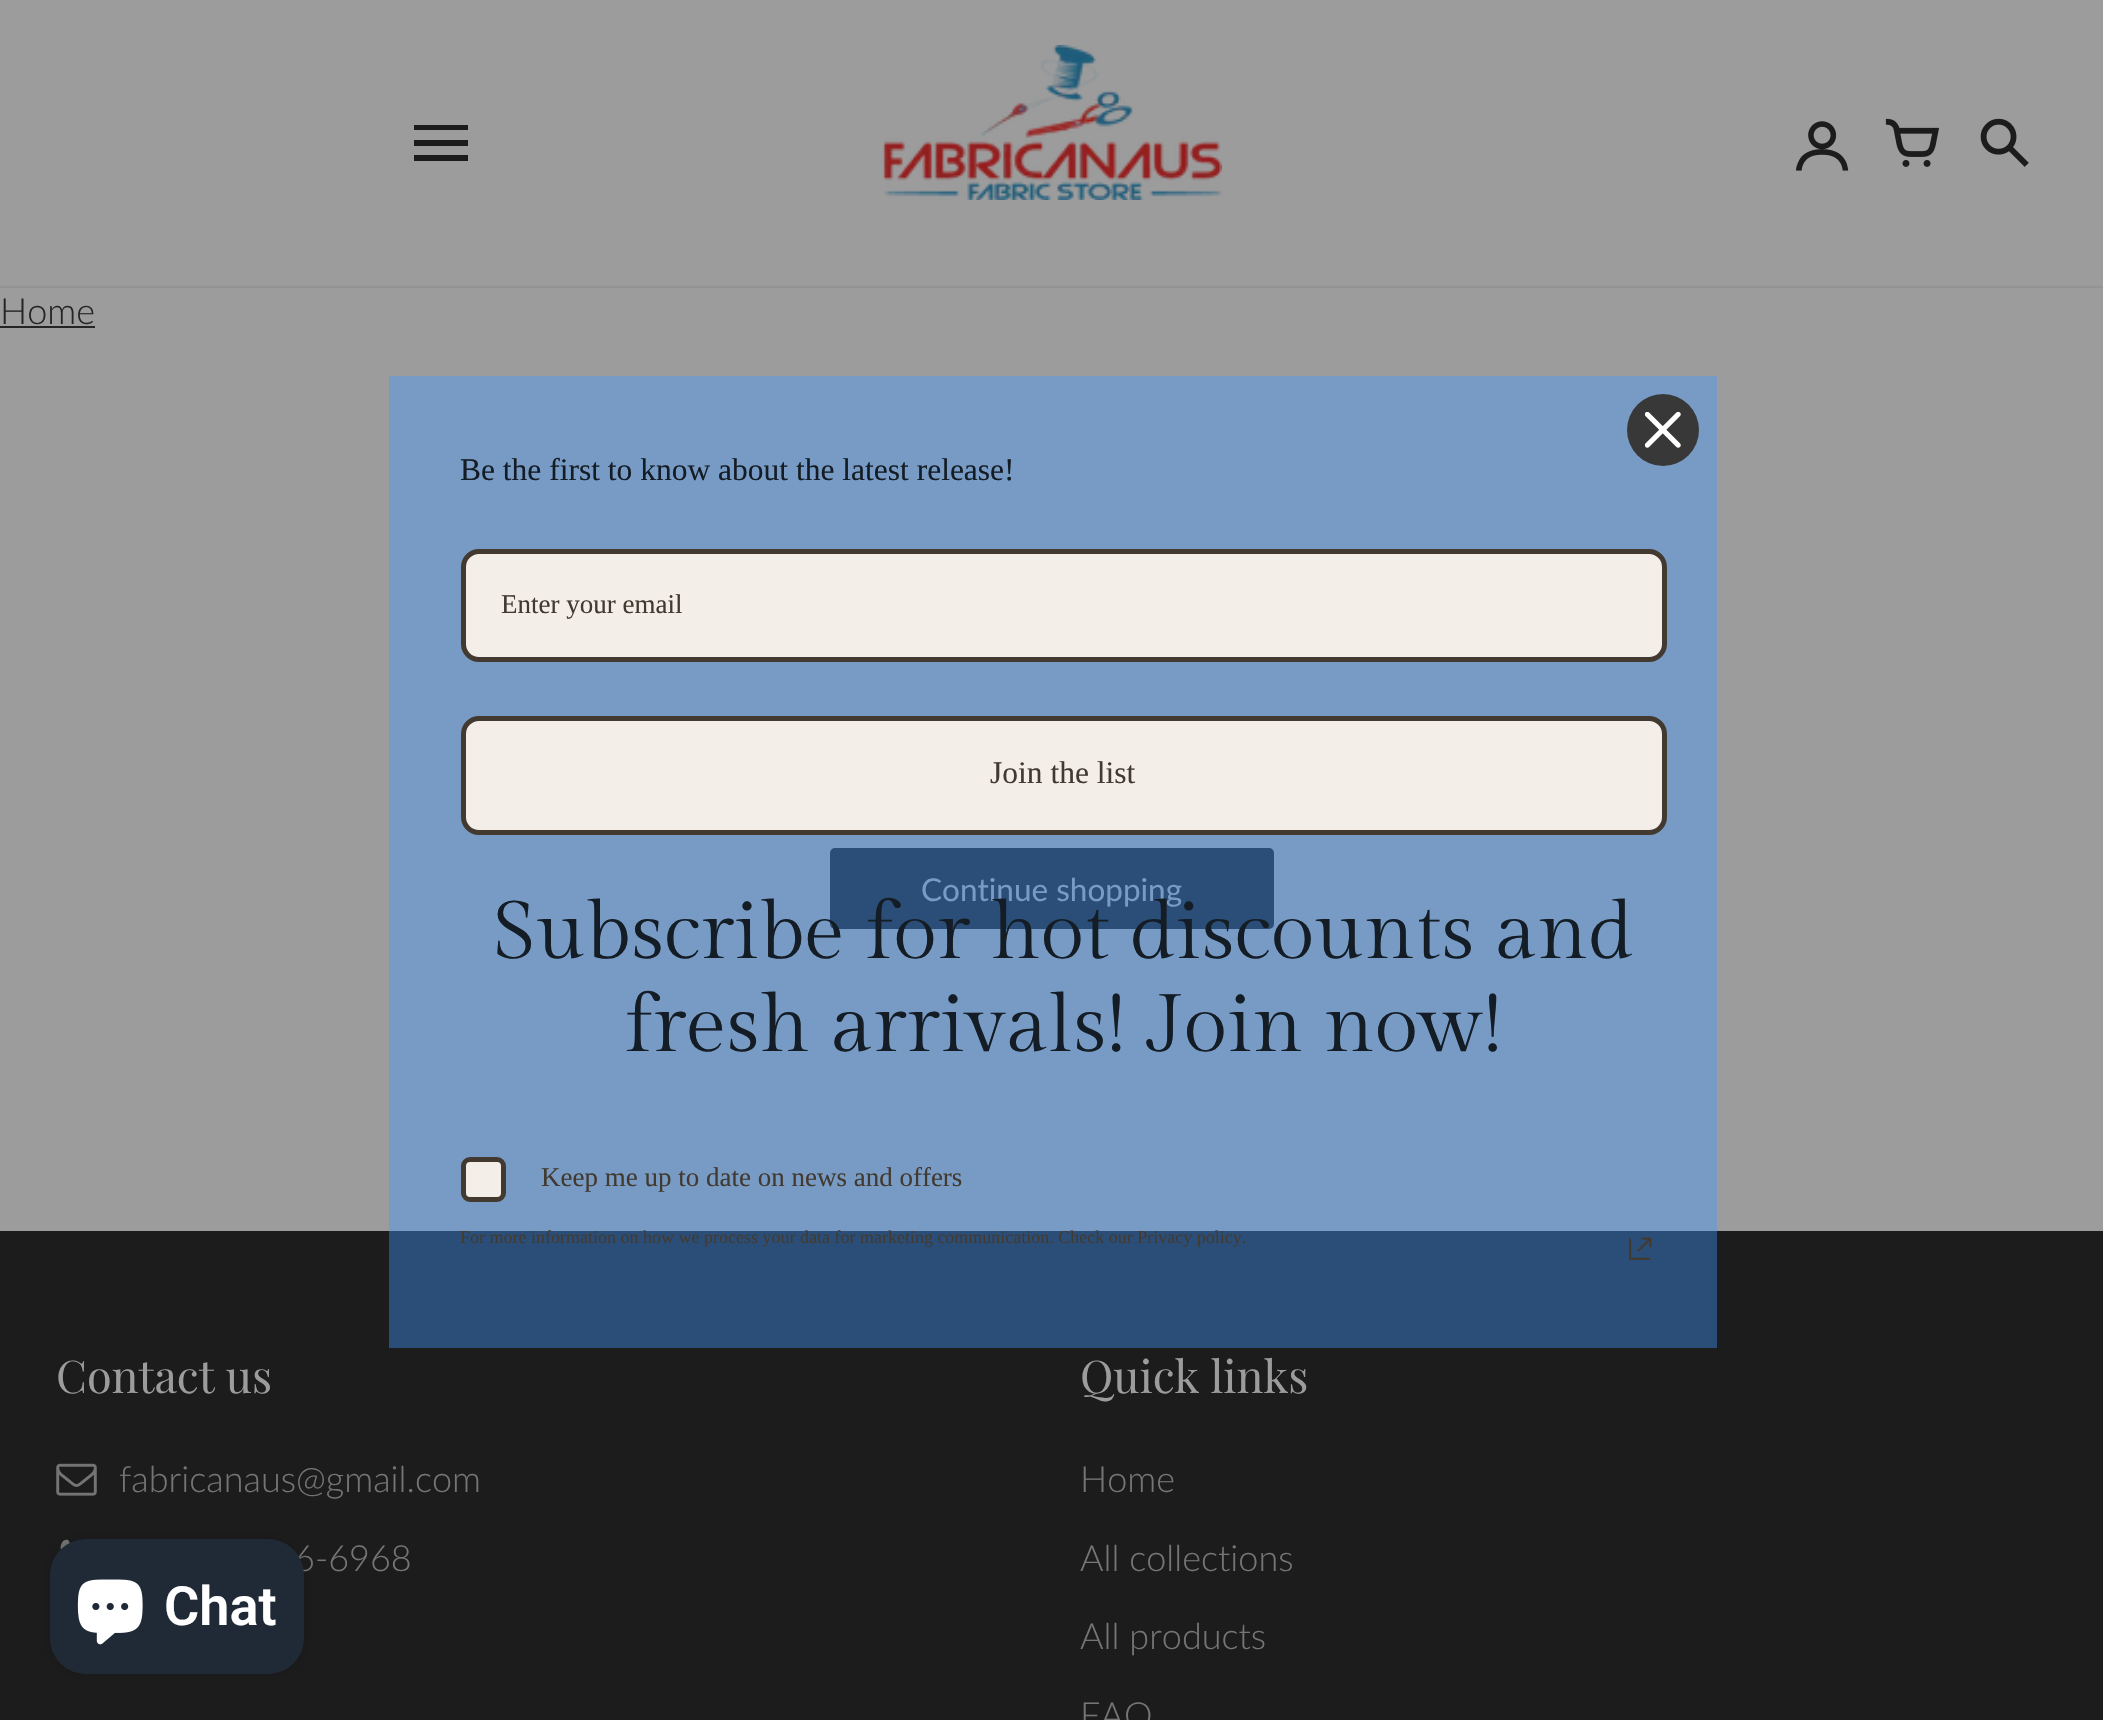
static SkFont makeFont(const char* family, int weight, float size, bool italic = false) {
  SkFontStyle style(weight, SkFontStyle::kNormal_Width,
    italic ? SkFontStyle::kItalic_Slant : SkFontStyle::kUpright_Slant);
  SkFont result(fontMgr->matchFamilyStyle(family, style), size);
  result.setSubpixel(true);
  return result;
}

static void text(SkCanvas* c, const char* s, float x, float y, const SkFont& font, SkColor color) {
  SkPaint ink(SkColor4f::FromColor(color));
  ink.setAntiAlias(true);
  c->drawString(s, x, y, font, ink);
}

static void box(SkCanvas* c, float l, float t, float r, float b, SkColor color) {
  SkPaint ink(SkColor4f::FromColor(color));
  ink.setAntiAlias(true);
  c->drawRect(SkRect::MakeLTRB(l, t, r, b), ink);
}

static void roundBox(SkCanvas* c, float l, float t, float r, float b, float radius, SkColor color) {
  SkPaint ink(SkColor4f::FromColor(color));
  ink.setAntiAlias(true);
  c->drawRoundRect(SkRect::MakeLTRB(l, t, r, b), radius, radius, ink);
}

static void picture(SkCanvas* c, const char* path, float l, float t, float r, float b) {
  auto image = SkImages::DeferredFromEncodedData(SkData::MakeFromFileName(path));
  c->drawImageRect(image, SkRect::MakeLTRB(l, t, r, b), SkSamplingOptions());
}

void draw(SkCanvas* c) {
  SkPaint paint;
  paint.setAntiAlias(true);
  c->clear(0xff9c9c9c);
  box(c, 389, 376, 1717, 1231, 0xff779bc4);
  box(c, 0, 286, 2103, 288, 0xff929393);
  paint.setColor(0xff1c1c1c);
  c->drawPath(SkPathBuilder().moveTo(414, 125).lineTo(468, 125).lineTo(468, 130).lineTo(414, 130).close().moveTo(414, 140).lineTo(468, 140).lineTo(468, 146).lineTo(414, 146).close().moveTo(414, 155).lineTo(468, 155).lineTo(468, 161).lineTo(414, 161).close().moveTo(414, 155).lineTo(414, 155).close().detach(), paint);
  picture(c, "img_01.png", 883, 45, 1222, 200);
  picture(c, "img_02.png", 1796, 121, 1849, 171);
  picture(c, "img_03.png", 1885, 118, 1939, 167);
  picture(c, "img_04.png", 1980, 118, 2029, 167);
  SkFont face1 = makeFont("Lato", 300, 36);
  text(c, "Home", 0, 324, face1, 0xff252525);
  box(c, 0, 326, 95, 328, 0xff252525);
  roundBox(c, 830, 848, 1274, 929, 5, 0xff2a4e77);
  SkFont face2 = makeFont("Lato", 400, 31.5f);
  text(c, "Continue shopping", 921, 901, face2, 0xff779bc4);
  box(c, 0, 1231, 2103, 1720, 0xff1c1c1c);
  box(c, 389, 1231, 1717, 1348, 0xff2a4e77);
  SkFont face3 = makeFont("Playfair Display", 400, 45);
  text(c, "Contact us", 56, 1393, face3, 0xff9c9c9c);
  picture(c, "img_05.png", 56, 1463, 97, 1496);
  text(c, "fabricanaus@gmail.com", 119, 1492, face1, 0xff757575);
  picture(c, "img_06.png", 60, 1539, 70, 1550);
  text(c, "6-6968", 294, 1571, face1, 0xff757575);
  text(c, "Quick links", 1080, 1393, face3, 0xff9c9c9c);
  text(c, "Home", 1080, 1492, face1, 0xff757575);
  text(c, "All collections", 1080, 1571, face1, 0xff757575);
  text(c, "All products", 1080, 1649, face1, 0xff757575);
  text(c, "FAQ", 1080, 1728, face1, 0xff757575);
  paint.setColor(0xff383838);
  c->drawCircle(1663, 430, 36, paint);
  picture(c, "img_07.png", 1645, 412, 1681, 448);
  SkFont face4 = makeFont("Liberation Serif", 400, 31.5f);
  text(c, "Be the first to know about the latest release!", 460, 480, face4, 0xff141d26);
  paint.setColor(0xfff4eee9);
  c->drawRoundRect(SkRect::MakeLTRB(463.5f, 551.5f, 1664.5f, 659.5f), 15.5f, 15.5f, paint);
  paint.setStyle(SkPaint::kStroke_Style);
  paint.setStrokeWidth(5);
  paint.setColor(0xff423a31);
  c->drawRoundRect(SkRect::MakeLTRB(463.5f, 551.5f, 1664.5f, 659.5f), 15.5f, 15.5f, paint);
  SkFont face5 = makeFont("Liberation Serif", 400, 27);
  text(c, "Enter your email", 501, 613, face5, 0xff423a31);
  paint.setStyle(SkPaint::kFill_Style);
  paint.setColor(0xfff4eee9);
  c->drawRoundRect(SkRect::MakeLTRB(463.5f, 718.5f, 1664.5f, 832.5f), 15.5f, 15.5f, paint);
  paint.setStyle(SkPaint::kStroke_Style);
  paint.setColor(0xff423a31);
  c->drawRoundRect(SkRect::MakeLTRB(463.5f, 718.5f, 1664.5f, 832.5f), 15.5f, 15.5f, paint);
  text(c, "Join the list", 990, 783, face4, 0xff423a31);
  SkFont face6 = makeFont("Gilda Display", 400, 81);
  text(c, "Subscribe for hot discounts and", 493, 958, face6, 0xff141d26);
  text(c, "fresh arrivals! Join now!", 624, 1051, face6, 0xff141d26);
  paint.setStyle(SkPaint::kFill_Style);
  paint.setColor(0xfff4eee9);
  c->drawRoundRect(SkRect::MakeLTRB(463.5f, 1159.5f, 503.5f, 1199.5f), 6.5f, 6.5f, paint);
  paint.setStyle(SkPaint::kStroke_Style);
  paint.setColor(0xff423a31);
  c->drawRoundRect(SkRect::MakeLTRB(463.5f, 1159.5f, 503.5f, 1199.5f), 6.5f, 6.5f, paint);
  text(c, "Keep me up to date on news and offers", 541, 1186, face5, 0xff423a31);
  SkFont face7 = makeFont("Liberation Serif", 400, 18);
  text(c, "For more information on how we process your data for marketing communication. Check our Privacy policy.", 460, 1243, face7, 0xff423a31);
  picture(c, "img_08.png", 1629, 1237, 1652, 1260);
  paint.setStyle(SkPaint::kFill_Style);
  paint.setColor(0x26000000);
  paint.setMaskFilter(SkMaskFilter::MakeBlur(kNormal_SkBlurStyle, 5.5f));
  c->drawRoundRect(SkRect::MakeLTRB(50, 1539, 304, 1674), 36, 36, paint);
  paint.setMaskFilter(nullptr);
  roundBox(c, 50, 1539, 304, 1674, 36, 0xff202a36);
  picture(c, "img_09.png", 77, 1579, 143, 1645);
  SkFont face8 = makeFont("Roboto", 600, 54);
  text(c, "Chat", 164, 1625, face8, 0xffffffff);
}
